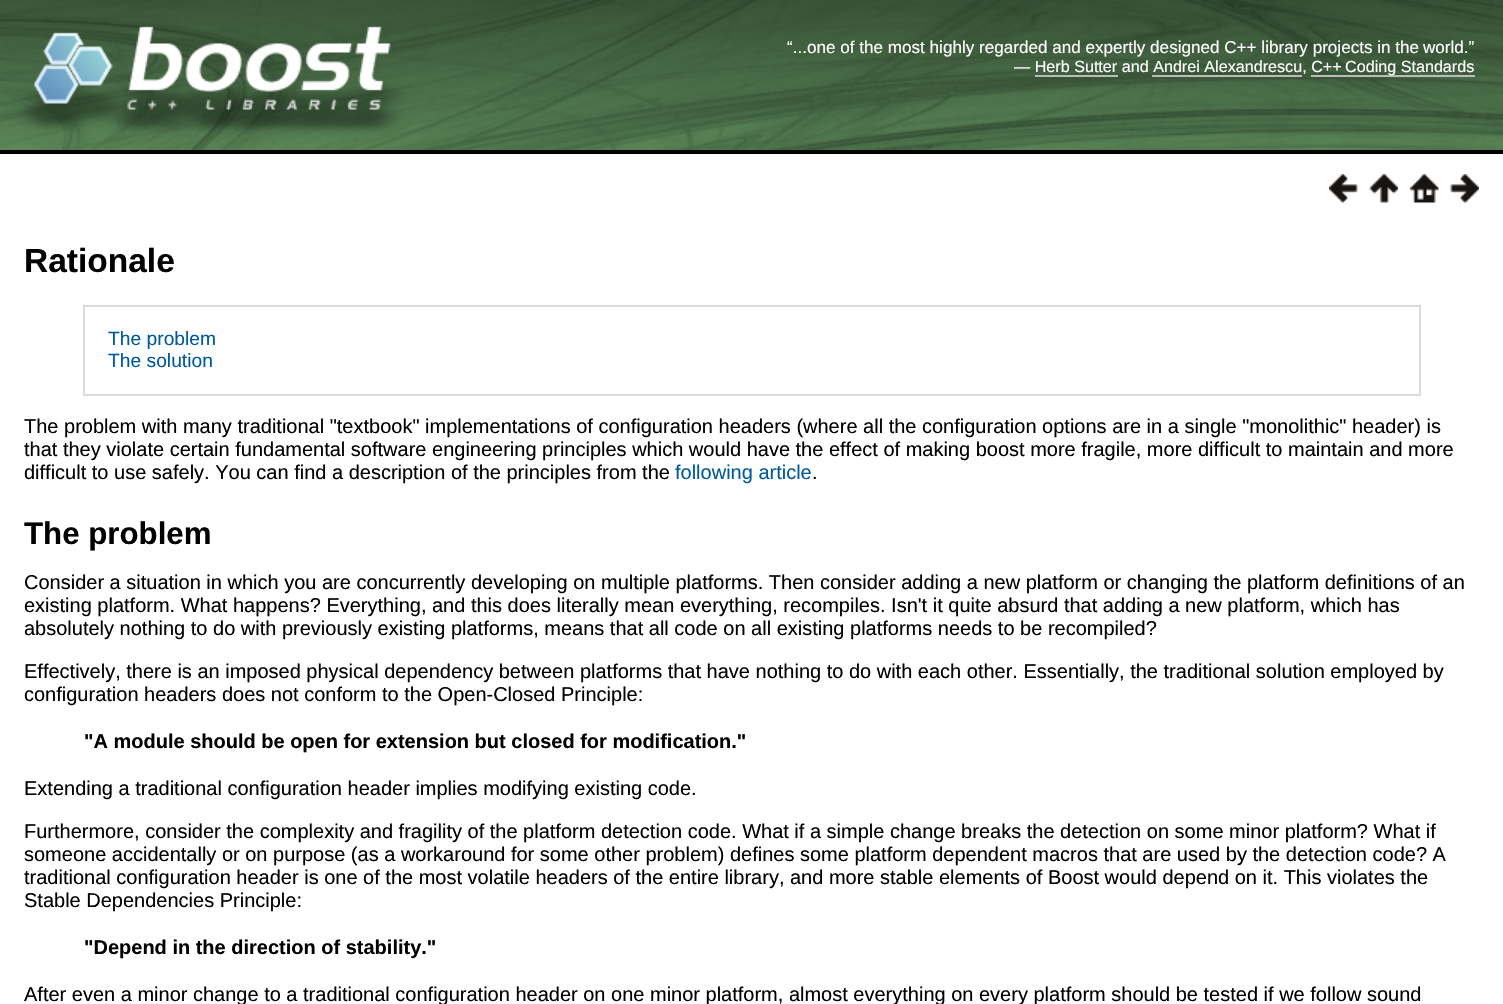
static SkFont makeFont(const char* family, int weight, float size, bool italic = false) {
  SkFontStyle style(weight, SkFontStyle::kNormal_Width,
    italic ? SkFontStyle::kItalic_Slant : SkFontStyle::kUpright_Slant);
  SkFont result(fontMgr->matchFamilyStyle(family, style), size);
  result.setSubpixel(true);
  return result;
}

static void text(SkCanvas* c, const char* s, float x, float y, const SkFont& font, SkColor color) {
  SkPaint ink(SkColor4f::FromColor(color));
  ink.setAntiAlias(true);
  c->drawString(s, x, y, font, ink);
}

static void box(SkCanvas* c, float l, float t, float r, float b, SkColor color) {
  SkPaint ink(SkColor4f::FromColor(color));
  ink.setAntiAlias(true);
  c->drawRect(SkRect::MakeLTRB(l, t, r, b), ink);
}

static void picture(SkCanvas* c, const char* path, float l, float t, float r, float b) {
  auto image = SkImages::DeferredFromEncodedData(SkData::MakeFromFileName(path));
  c->drawImageRect(image, SkRect::MakeLTRB(l, t, r, b), SkSamplingOptions());
}

void draw(SkCanvas* c) {
  SkPaint paint;
  paint.setAntiAlias(true);
  c->clear(0xffffffff);
  box(c, 0, 150, 1503, 154, 0xff000000);
  picture(c, "img_01.png", 0, 0, 1503, 150);
  SkFont face1 = makeFont("Liberation Sans", 400, 17.1f);
  text(c, "“...one of the most highly regarded and expertly designed C++ library projects in the", 787, 53, face1, 0xffffffff);
  text(c, "world.”", 1423, 53, face1, 0xffffffff);
  SkFont face2 = makeFont("Liberation Sans", 400, 16.15f);
  text(c, "— Herb Sutter and Andrei Alexandrescu, C++", 1014, 72, face2, 0xffffffff);
  box(c, 1311, 75, 1475, 77, 0xffbbbbbb);
  text(c, "Coding Standards", 1345, 72, face2, 0xffffffff);
  box(c, 1035, 75, 1118, 77, 0xffbbbbbb);
  box(c, 1152, 75, 1302, 77, 0xffbbbbbb);
  picture(c, "img_02.png", 1329, 174, 1358, 203);
  picture(c, "img_03.png", 1369, 174, 1398, 203);
  picture(c, "img_04.png", 1410, 174, 1439, 203);
  picture(c, "img_05.png", 1450, 174, 1479, 203);
  SkFont face3 = makeFont("Liberation Sans", 700, 33.5f);
  text(c, "Rationale", 24, 272, face3, 0xff000000);
  paint.setStyle(SkPaint::kStroke_Style);
  paint.setStrokeWidth(2);
  paint.setColor(0xffdcdcdc);
  c->drawRect(SkRect::MakeLTRB(84, 306, 1420, 395), paint);
  SkFont face4 = makeFont("Liberation Sans", 400, 19.25f);
  text(c, "The problem", 108, 345, face4, 0xff005a9c);
  text(c, "The solution", 108, 367, face4, 0xff005a9c);
  SkFont face5 = makeFont("Liberation Sans", 400, 20);
  text(c, "The problem with many traditional \"textbook\" implementations of configuration headers (where all the configuration options are in a single \"monolithic\" header) is", 24, 433, face5, 0xff000000);
  text(c, "that they violate certain fundamental software engineering principles which would have the effect of making boost more fragile, more difficult to maintain and more", 24, 456, face5, 0xff000000);
  text(c, "difficult to use safely. You can find a description of the principles from the", 24, 479, face5, 0xff000000);
  text(c, "following article", 675, 479, face5, 0xff005a9c);
  text(c, ".", 812, 479, face5, 0xff000000);
  SkFont face6 = makeFont("Liberation Sans", 700, 31.25f);
  text(c, "The problem", 24, 544, face6, 0xff000000);
  text(c, "Consider a situation in which you are concurrently developing on multiple platforms. Then consider adding a new platform or changing the platform definitions of an", 24, 589, face5, 0xff000000);
  text(c, "existing platform. What happens? Everything, and this does literally mean everything, recompiles. Isn't it quite absurd that adding a new platform, which has", 24, 612, face5, 0xff000000);
  text(c, "absolutely nothing to do with previously existing platforms, means that all code on all existing platforms needs to be recompiled?", 24, 635, face5, 0xff000000);
  text(c, "Effectively, there is an imposed physical dependency between platforms that have nothing to do with each other. Essentially, the traditional solution employed by", 24, 678, face5, 0xff000000);
  text(c, "configuration headers does not conform to the Open-Closed Principle:", 24, 701, face5, 0xff000000);
  SkFont face7 = makeFont("Liberation Sans", 700, 20);
  text(c, "\"A module should be open for extension but closed for modification.\"", 84, 748, face7, 0xff000000);
  text(c, "Extending a traditional configuration header implies modifying existing code.", 24, 795, face5, 0xff000000);
  text(c, "Furthermore, consider the complexity and fragility of the platform detection code. What if a simple change breaks the detection on some minor platform? What if", 24, 838, face5, 0xff000000);
  text(c, "someone accidentally or on purpose (as a workaround for some other problem) defines some platform dependent macros that are used by the detection code? A", 24, 861, face5, 0xff000000);
  text(c, "traditional configuration header is one of the most volatile headers of the entire library, and more stable elements of Boost would depend on it. This violates the", 24, 884, face5, 0xff000000);
  text(c, "Stable Dependencies Principle:", 24, 907, face5, 0xff000000);
  text(c, "\"Depend in the direction of stability.\"", 84, 954, face7, 0xff000000);
  text(c, "After even a minor change to a traditional configuration header on one minor platform, almost everything on every platform should be tested if we follow sound", 24, 1001, face5, 0xff000000);
}
